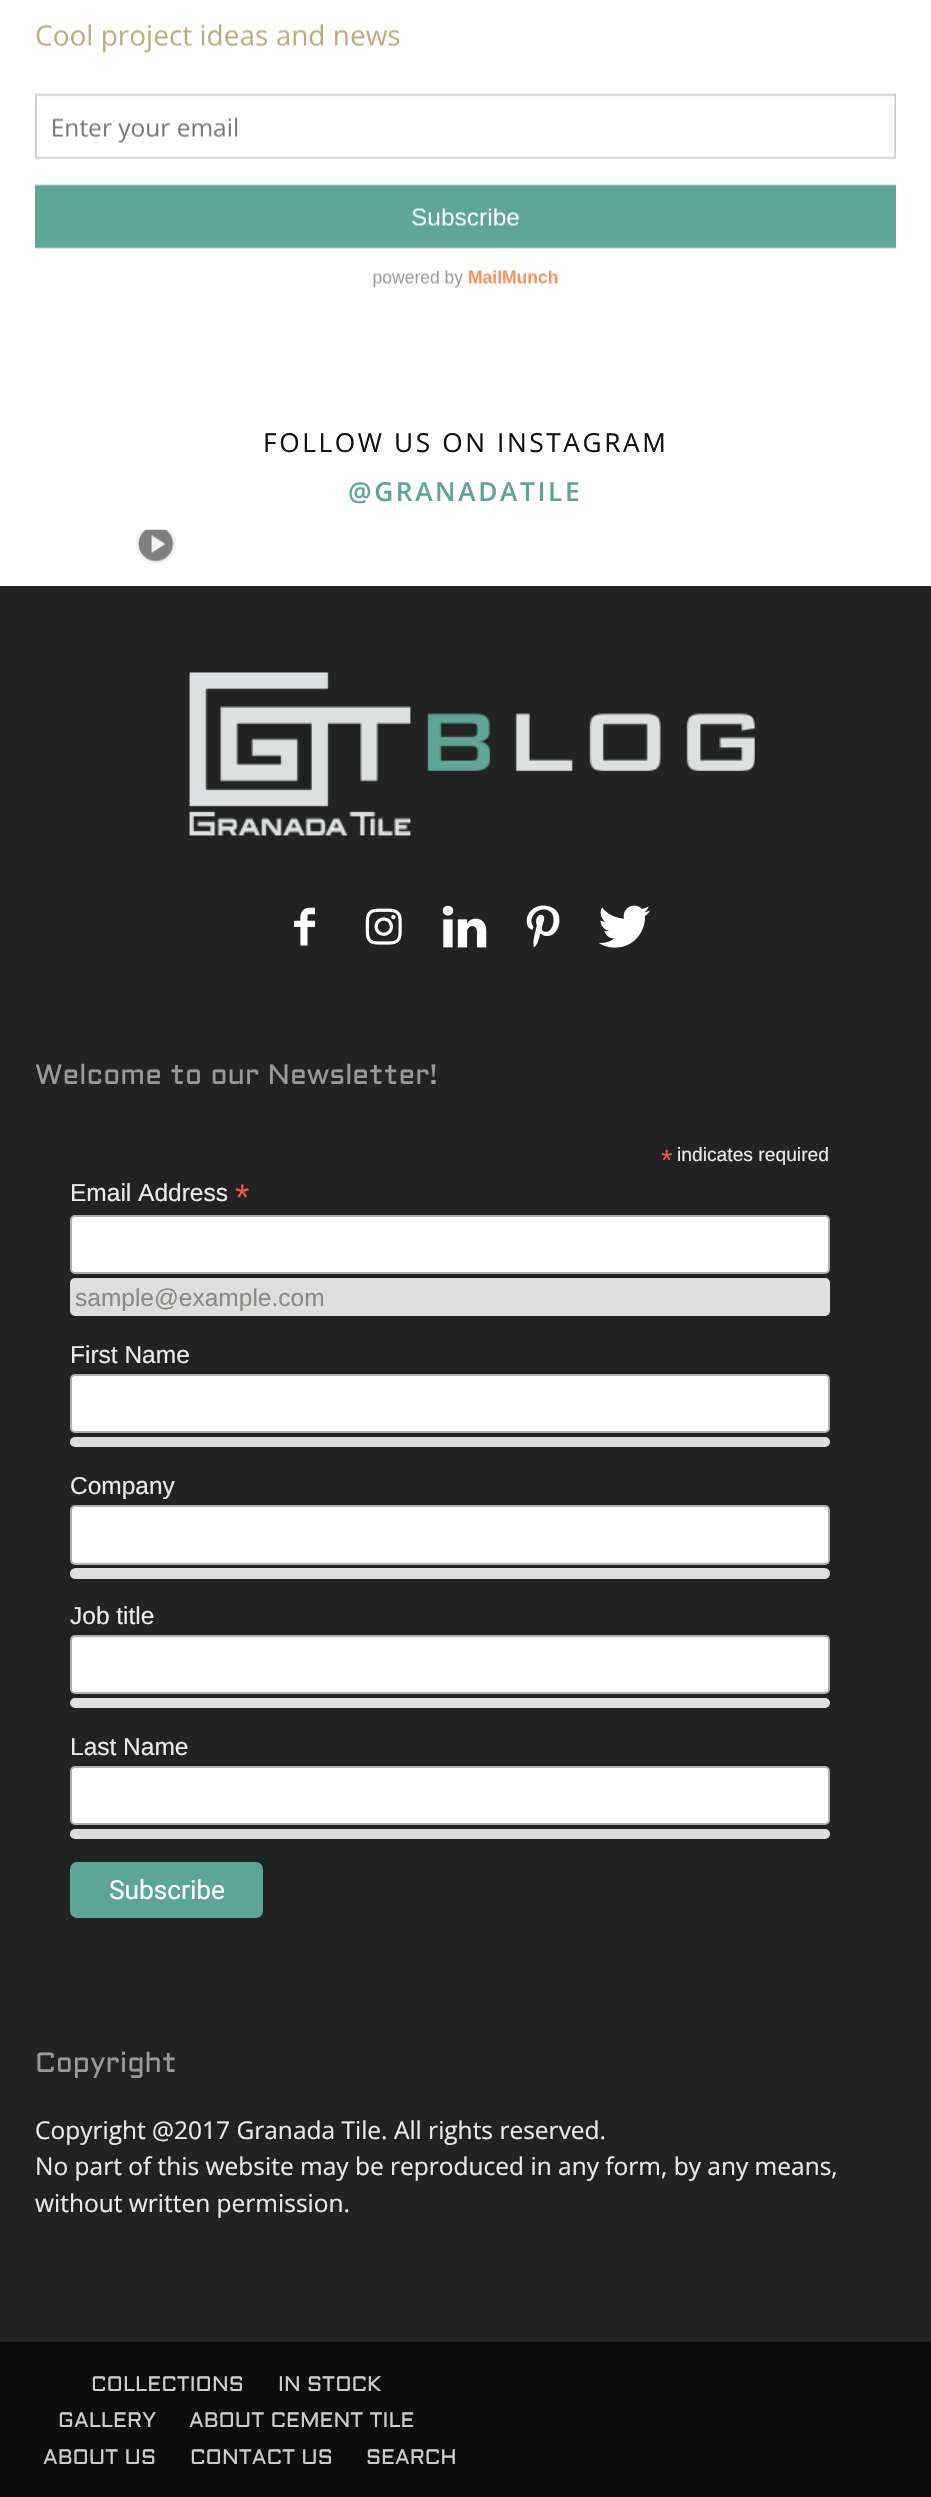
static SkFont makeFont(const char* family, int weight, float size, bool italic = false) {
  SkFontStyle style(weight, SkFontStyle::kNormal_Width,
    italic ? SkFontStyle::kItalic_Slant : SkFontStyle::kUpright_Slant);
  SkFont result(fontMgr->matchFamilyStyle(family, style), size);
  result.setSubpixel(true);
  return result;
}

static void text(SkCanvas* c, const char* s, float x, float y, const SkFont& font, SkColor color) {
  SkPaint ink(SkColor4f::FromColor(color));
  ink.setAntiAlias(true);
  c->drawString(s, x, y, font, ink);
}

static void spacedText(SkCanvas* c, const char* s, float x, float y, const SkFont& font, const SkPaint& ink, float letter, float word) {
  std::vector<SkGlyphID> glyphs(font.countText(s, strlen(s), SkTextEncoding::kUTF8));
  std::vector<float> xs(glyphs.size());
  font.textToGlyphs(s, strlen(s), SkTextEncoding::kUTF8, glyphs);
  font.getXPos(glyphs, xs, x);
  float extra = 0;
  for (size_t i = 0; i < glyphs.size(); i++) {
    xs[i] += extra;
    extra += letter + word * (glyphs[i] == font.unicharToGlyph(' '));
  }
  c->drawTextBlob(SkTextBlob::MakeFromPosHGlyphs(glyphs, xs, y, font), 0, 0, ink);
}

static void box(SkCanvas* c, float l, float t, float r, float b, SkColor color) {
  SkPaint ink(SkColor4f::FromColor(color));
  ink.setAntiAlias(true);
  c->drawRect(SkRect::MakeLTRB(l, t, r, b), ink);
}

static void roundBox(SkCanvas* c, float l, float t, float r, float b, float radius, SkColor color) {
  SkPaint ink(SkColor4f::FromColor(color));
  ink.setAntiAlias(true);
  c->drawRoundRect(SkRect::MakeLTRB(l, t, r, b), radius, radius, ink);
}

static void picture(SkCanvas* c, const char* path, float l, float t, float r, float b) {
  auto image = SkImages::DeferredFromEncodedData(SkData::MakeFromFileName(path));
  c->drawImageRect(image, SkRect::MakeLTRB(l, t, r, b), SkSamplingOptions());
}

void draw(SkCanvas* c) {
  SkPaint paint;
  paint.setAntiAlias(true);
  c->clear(0xffffffff);
  picture(c, "img_01.png", 35, 23, 896, 288);
  SkFont face1 = makeFont("Open Sans", 400, 26.25f);
  paint.setColor(0xff111111);
  spacedText(c, "FOLLOW US ON INSTAGRAM", 263, 452, face1, paint, 2.6f, 0);
  SkFont face2 = makeFont("Open Sans", 600, 26.25f);
  paint.setColor(0xff5da697);
  spacedText(c, "@GRANADATILE", 348, 501, face2, paint, 2.6f, 0);
  picture(c, "img_02.png", 136, 529, 176, 564);
  box(c, 0, 586, 931, 2342, 0xff222222);
  picture(c, "img_03.png", 189, 672, 755, 836);
  picture(c, "img_04.png", 294, 907, 315, 946);
  picture(c, "img_05.png", 365, 908, 402, 945);
  picture(c, "img_06.png", 442, 905, 487, 948);
  picture(c, "img_07.png", 526, 905, 560, 948);
  picture(c, "img_08.png", 598, 905, 650, 948);
  SkFont face3 = makeFont("Aldrich", 400, 28);
  text(c, "Welcome to our Newsletter!", 35, 1084, face3, 0xff999999);
  SkFont face4 = makeFont("Liberation Sans", 400, 29);
  text(c, "*", 661, 1170, face4, 0xffe85c41);
  SkFont face5 = makeFont("Liberation Sans", 400, 19.25f);
  text(c, "indicates required", 677, 1161, face5, 0xffeaeaea);
  SkFont face6 = makeFont("Liberation Sans", 400, 24.5f);
  text(c, "Email Address", 70, 1201, face6, 0xffeaeaea);
  SkFont face7 = makeFont("Liberation Sans", 400, 37);
  text(c, "*", 235, 1210, face7, 0xffe85c41);
  paint.setColor(0xffffffff);
  c->drawRoundRect(SkRect::MakeLTRB(71, 1216, 829, 1273), 4, 4, paint);
  paint.setStyle(SkPaint::kStroke_Style);
  paint.setStrokeWidth(2);
  paint.setColor(0xffabb0b2);
  c->drawRoundRect(SkRect::MakeLTRB(71, 1216, 829, 1273), 4, 4, paint);
  roundBox(c, 70, 1278, 830, 1316, 5, 0xffdedede);
  text(c, "sample@example.com", 75, 1306, face6, 0xff8d8985);
  text(c, "First Name", 70, 1363, face6, 0xffeaeaea);
  paint.setStyle(SkPaint::kFill_Style);
  paint.setColor(0xffffffff);
  c->drawRoundRect(SkRect::MakeLTRB(71, 1375, 829, 1432), 4, 4, paint);
  paint.setStyle(SkPaint::kStroke_Style);
  paint.setColor(0xffabb0b2);
  c->drawRoundRect(SkRect::MakeLTRB(71, 1375, 829, 1432), 4, 4, paint);
  roundBox(c, 70, 1437, 830, 1447, 5, 0xffdedede);
  text(c, "Company", 70, 1494, face6, 0xffeaeaea);
  paint.setStyle(SkPaint::kFill_Style);
  paint.setColor(0xffffffff);
  c->drawRoundRect(SkRect::MakeLTRB(71, 1506, 829, 1564), 4, 4, paint);
  paint.setStyle(SkPaint::kStroke_Style);
  paint.setColor(0xffabb0b2);
  c->drawRoundRect(SkRect::MakeLTRB(71, 1506, 829, 1564), 4, 4, paint);
  roundBox(c, 70, 1568, 830, 1579, 5.5f, 0xffdedede);
  text(c, "Job title", 70, 1624, face6, 0xffeaeaea);
  paint.setStyle(SkPaint::kFill_Style);
  paint.setColor(0xffffffff);
  c->drawRoundRect(SkRect::MakeLTRB(71, 1636, 829, 1693), 4, 4, paint);
  paint.setStyle(SkPaint::kStroke_Style);
  paint.setColor(0xffabb0b2);
  c->drawRoundRect(SkRect::MakeLTRB(71, 1636, 829, 1693), 4, 4, paint);
  roundBox(c, 70, 1698, 830, 1708, 5, 0xffdedede);
  text(c, "Last Name", 70, 1755, face6, 0xffeaeaea);
  paint.setStyle(SkPaint::kFill_Style);
  paint.setColor(0xffffffff);
  c->drawRoundRect(SkRect::MakeLTRB(71, 1767, 829, 1824), 4, 4, paint);
  paint.setStyle(SkPaint::kStroke_Style);
  paint.setColor(0xffabb0b2);
  c->drawRoundRect(SkRect::MakeLTRB(71, 1767, 829, 1824), 4, 4, paint);
  roundBox(c, 70, 1829, 830, 1839, 5, 0xffdedede);
  roundBox(c, 70, 1862, 263, 1918, 7, 0xff5da697);
  SkFont face8 = makeFont("Roboto", 400, 26.25f);
  text(c, "Subscribe", 109, 1899, face8, 0xffffffff);
  text(c, "Copyright", 35, 2072, face3, 0xff999999);
  SkFont face9 = makeFont("Open Sans", 400, 24.5f);
  text(c, "Copyright @2017 Granada Tile. All rights reserved.", 35, 2139, face9, 0xffeaeaea);
  text(c, "No part of this website may be reproduced in any form, by any means,", 35, 2175, face9, 0xffeaeaea);
  text(c, "without written permission.", 35, 2212, face9, 0xffeaeaea);
  box(c, 0, 2342, 931, 2497, 0xff0d0d0d);
  SkFont face10 = makeFont("Aldrich", 400, 21);
  text(c, "COLLECTIONS", 91, 2391, face10, 0xffcccccc);
  text(c, "IN STOCK", 278, 2391, face10, 0xffcccccc);
  text(c, "GALLERY", 58, 2427, face10, 0xffcccccc);
  text(c, "ABOUT CEMENT TILE", 189, 2427, face10, 0xffcccccc);
  text(c, "ABOUT US", 43, 2464, face10, 0xffcccccc);
  text(c, "CONTACT US", 190, 2464, face10, 0xffcccccc);
  text(c, "SEARCH", 366, 2464, face10, 0xffcccccc);
}
